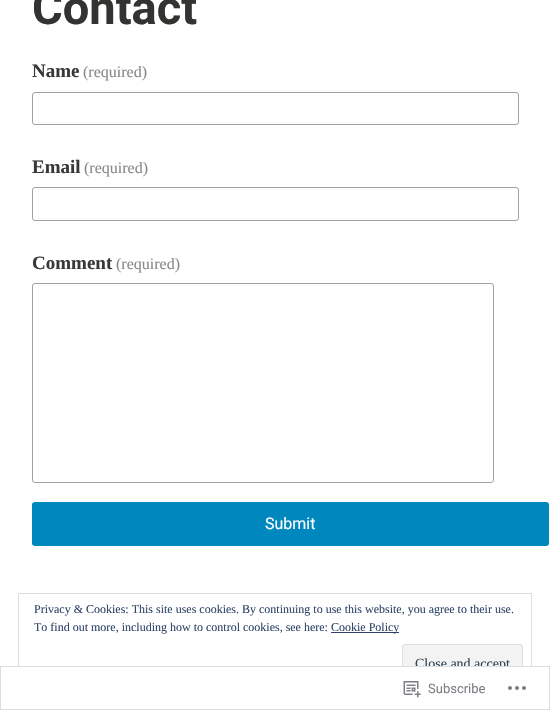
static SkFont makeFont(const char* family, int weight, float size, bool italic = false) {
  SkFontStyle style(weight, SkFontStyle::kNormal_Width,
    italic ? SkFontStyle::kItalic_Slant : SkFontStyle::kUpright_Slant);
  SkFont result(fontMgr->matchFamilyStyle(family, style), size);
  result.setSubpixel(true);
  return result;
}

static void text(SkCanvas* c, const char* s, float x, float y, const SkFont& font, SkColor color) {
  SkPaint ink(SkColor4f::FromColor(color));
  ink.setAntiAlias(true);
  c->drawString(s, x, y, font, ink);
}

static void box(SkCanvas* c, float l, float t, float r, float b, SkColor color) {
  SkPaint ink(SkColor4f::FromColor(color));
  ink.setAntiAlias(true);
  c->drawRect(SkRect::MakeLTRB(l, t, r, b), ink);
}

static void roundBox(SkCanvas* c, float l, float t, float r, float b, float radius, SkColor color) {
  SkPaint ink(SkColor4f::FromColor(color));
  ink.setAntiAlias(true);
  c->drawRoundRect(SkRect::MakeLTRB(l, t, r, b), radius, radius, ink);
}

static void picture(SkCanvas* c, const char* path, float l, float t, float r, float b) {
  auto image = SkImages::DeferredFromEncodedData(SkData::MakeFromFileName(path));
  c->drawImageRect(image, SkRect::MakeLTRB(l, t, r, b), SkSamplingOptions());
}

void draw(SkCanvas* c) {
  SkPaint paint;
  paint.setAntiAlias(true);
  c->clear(0xffffffff);
  SkFont face1 = makeFont("Roboto", 700, 47);
  text(c, "Contact", 32, 24, face1, 0xff333332);
  SkFont face2 = makeFont("Liberation Serif", 700, 19);
  text(c, "Name", 32, 77, face2, 0xff383838);
  SkFont face3 = makeFont("Liberation Serif", 400, 16);
  text(c, "(required)", 83, 77, face3, 0xff888888);
  paint.setStyle(SkPaint::kStroke_Style);
  paint.setStrokeWidth(1);
  paint.setColor(0xffa1a1a1);
  c->drawRoundRect(SkRect::MakeLTRB(32.5f, 92.5f, 518.5f, 124.5f), 2.5f, 2.5f, paint);
  text(c, "Email", 32, 173, face2, 0xff383838);
  text(c, "(required)", 84, 173, face3, 0xff888888);
  c->drawRoundRect(SkRect::MakeLTRB(32.5f, 187.5f, 518.5f, 220.5f), 2.5f, 2.5f, paint);
  text(c, "Comment", 32, 269, face2, 0xff383838);
  text(c, "(required)", 116, 269, face3, 0xff888888);
  c->drawRoundRect(SkRect::MakeLTRB(32.5f, 283.5f, 493.5f, 482.5f), 2.5f, 2.5f, paint);
  roundBox(c, 32, 502, 549, 546, 3, 0xff0087be);
  SkFont face4 = makeFont("Roboto", 400, 16);
  text(c, "Submit", 265, 529, face4, 0xffffffff);
  paint.setColor(0xffdedede);
  c->drawRect(SkRect::MakeLTRB(18.5f, 593.5f, 531.5f, 691.5f), paint);
  SkFont face5 = makeFont("Liberation Serif", 400, 12);
  text(c, "Privacy & Cookies: This site uses cookies. By continuing to use this website, you agree to their use.", 34, 613, face5, 0xff2e4467);
  text(c, "To find out more, including how to control cookies, see here:", 34, 631, face5, 0xff2e4467);
  box(c, 331, 632, 399, 633, 0xff2e4467);
  text(c, "Cookie Policy", 331, 631, face5, 0xff2e4467);
  paint.setStyle(SkPaint::kFill_Style);
  paint.setColor(0xfff3f3f3);
  c->drawRoundRect(SkRect::MakeLTRB(402.5f, 644.5f, 522.5f, 682.5f), 2.5f, 2.5f, paint);
  paint.setStyle(SkPaint::kStroke_Style);
  paint.setColor(0xffdedede);
  c->drawRoundRect(SkRect::MakeLTRB(402.5f, 644.5f, 522.5f, 682.5f), 2.5f, 2.5f, paint);
  SkFont face6 = makeFont("Liberation Serif", 400, 14);
  text(c, "Close and accept", 415, 668, face6, 0xff2e4453);
  box(c, 18, 666, 532, 692, 0xfaffffff);
  paint.setColor(0xfadcdcde);
  c->drawRect(SkRect::MakeLTRB(0.5f, 666.5f, 549.5f, 709.5f), paint);
  picture(c, "img_01.png", 403, 681, 421, 698);
  SkFont face7 = makeFont("Roboto", 400, 13);
  text(c, "Subscribe", 428, 693, face7, 0xff7b7f84);
  picture(c, "img_02.png", 508, 686, 526, 690);
}
